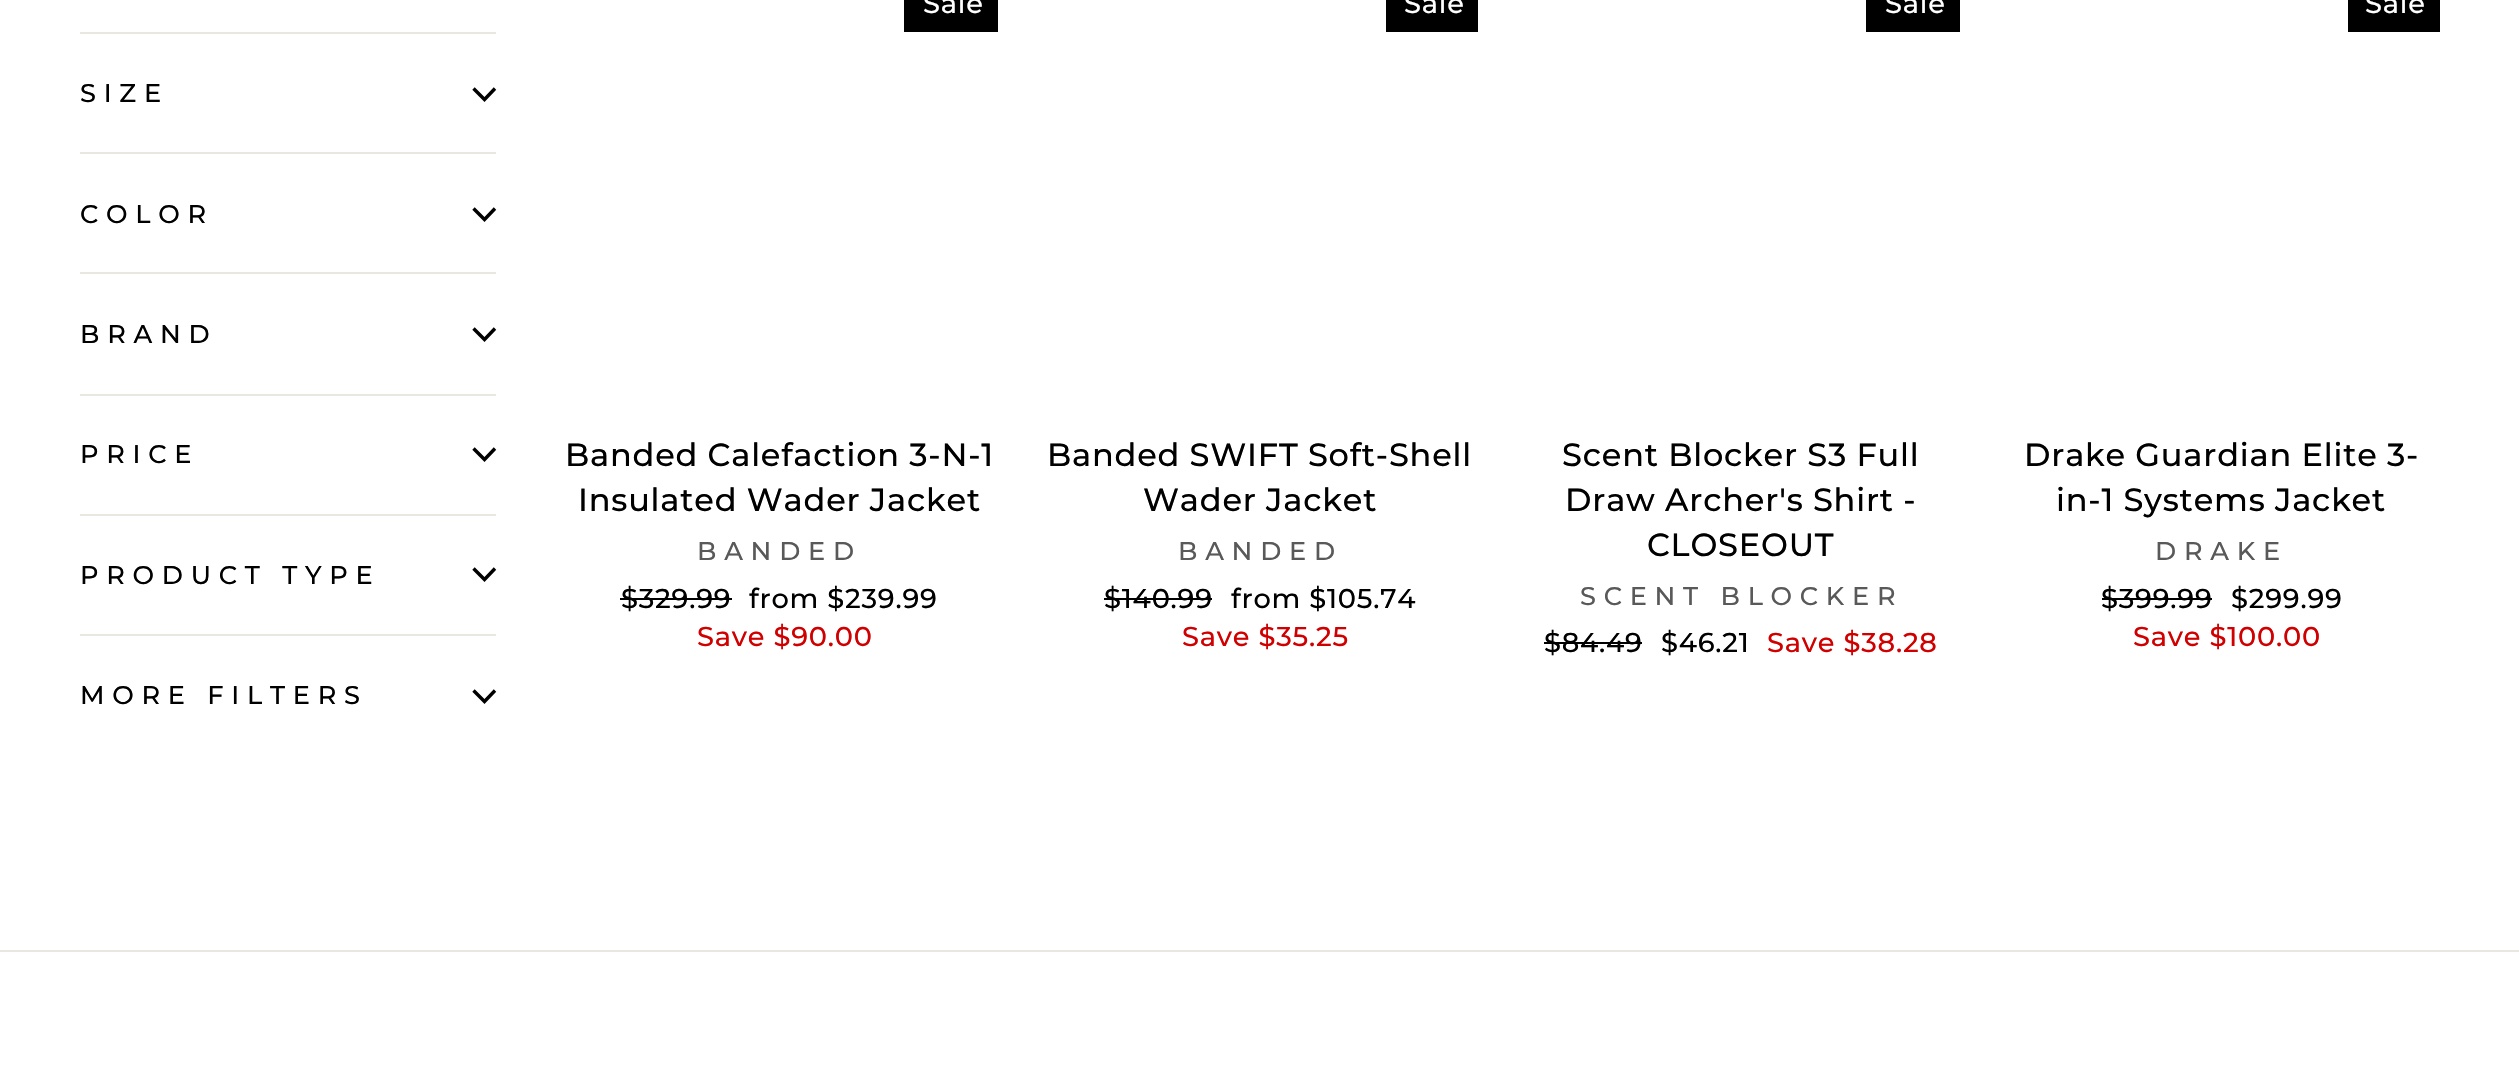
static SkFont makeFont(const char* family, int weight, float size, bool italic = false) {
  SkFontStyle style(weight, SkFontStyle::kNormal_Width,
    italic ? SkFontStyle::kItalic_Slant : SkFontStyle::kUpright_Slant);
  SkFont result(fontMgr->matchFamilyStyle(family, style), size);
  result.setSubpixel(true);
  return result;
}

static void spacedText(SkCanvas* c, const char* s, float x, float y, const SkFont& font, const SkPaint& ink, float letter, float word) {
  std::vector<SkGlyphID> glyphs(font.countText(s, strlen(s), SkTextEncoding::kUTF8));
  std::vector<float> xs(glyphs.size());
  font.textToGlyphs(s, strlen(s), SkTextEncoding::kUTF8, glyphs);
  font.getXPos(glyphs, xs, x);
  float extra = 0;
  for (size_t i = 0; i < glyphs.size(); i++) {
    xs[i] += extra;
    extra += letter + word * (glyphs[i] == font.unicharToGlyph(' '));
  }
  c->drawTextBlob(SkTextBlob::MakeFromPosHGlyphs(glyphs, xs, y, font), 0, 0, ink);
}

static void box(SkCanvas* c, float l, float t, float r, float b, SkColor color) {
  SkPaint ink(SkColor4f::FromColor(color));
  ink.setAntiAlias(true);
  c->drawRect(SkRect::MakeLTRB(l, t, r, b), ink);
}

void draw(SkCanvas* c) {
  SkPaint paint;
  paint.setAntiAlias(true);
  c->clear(0xffffffff);
  box(c, 80, 32, 496, 34, 0xffe8e8e1);
  SkFont face1 = makeFont("Montserrat", 500, 25.6f);
  paint.setColor(0xff000000);
  spacedText(c, "SIZE", 80, 102, face1, paint, 7.75f, 0);
  paint.setStyle(SkPaint::kStroke_Style);
  paint.setStrokeWidth(3.4f);
  c->drawPath(SkPathBuilder().moveTo(473.5f, 88.5f).lineTo(484.5f, 99.5f).lineTo(495, 88.5f).detach(), paint);
  box(c, 80, 152, 496, 154, 0xffe8e8e1);
  paint.setStyle(SkPaint::kFill_Style);
  spacedText(c, "COLOR", 80, 223, face1, paint, 7.75f, 0);
  paint.setStyle(SkPaint::kStroke_Style);
  c->drawPath(SkPathBuilder().moveTo(473.5f, 208.5f).lineTo(484.5f, 219.5f).lineTo(495, 208.5f).detach(), paint);
  box(c, 80, 272, 496, 274, 0xffe8e8e1);
  paint.setStyle(SkPaint::kFill_Style);
  spacedText(c, "BRAND", 80, 343, face1, paint, 7.75f, 0);
  paint.setStyle(SkPaint::kStroke_Style);
  c->drawPath(SkPathBuilder().moveTo(473.5f, 328.5f).lineTo(484.5f, 339.5f).lineTo(495, 328.5f).detach(), paint);
  box(c, 80, 394, 496, 396, 0xffe8e8e1);
  paint.setStyle(SkPaint::kFill_Style);
  spacedText(c, "PRICE", 80, 463, face1, paint, 7.75f, 0);
  paint.setStyle(SkPaint::kStroke_Style);
  c->drawPath(SkPathBuilder().moveTo(473.5f, 448.5f).lineTo(484.5f, 459.5f).lineTo(495, 448.5f).detach(), paint);
  box(c, 80, 514, 496, 516, 0xffe8e8e1);
  paint.setStyle(SkPaint::kFill_Style);
  spacedText(c, "PRODUCT TYPE", 80, 584, face1, paint, 7.75f, 0);
  paint.setStyle(SkPaint::kStroke_Style);
  c->drawPath(SkPathBuilder().moveTo(473.5f, 568.5f).lineTo(484.5f, 579.5f).lineTo(495, 568.5f).detach(), paint);
  box(c, 80, 634, 496, 636, 0xffe8e8e1);
  paint.setStyle(SkPaint::kFill_Style);
  spacedText(c, "MORE FILTERS", 80, 704, face1, paint, 7.75f, 0);
  paint.setStyle(SkPaint::kStroke_Style);
  c->drawPath(SkPathBuilder().moveTo(473.5f, 690.5f).lineTo(484.5f, 701.5f).lineTo(495, 690.5f).detach(), paint);
  box(c, 904, 0, 998, 32, 0xff000000);
  SkFont face2 = makeFont("Montserrat", 500, 27.25f);
  paint.setStyle(SkPaint::kFill_Style);
  paint.setColor(0xffffffff);
  spacedText(c, "Sale", 923, 13, face2, paint, 0.8f, 0);
  SkFont face3 = makeFont("Montserrat", 500, 32);
  paint.setColor(0xff000000);
  spacedText(c, "Banded Calefaction 3-N-1", 565, 466, face3, paint, 0.8f, 0);
  spacedText(c, "Insulated Wader Jacket", 578, 511, face3, paint, 0.8f, 0);
  paint.setColor(0xff595959);
  spacedText(c, "BANDED", 697, 560, face1, paint, 7.75f, 0);
  paint.setColor(0xff000000);
  spacedText(c, "$329.99", 621, 608, face2, paint, 0.8f, 0);
  box(c, 620, 598, 732, 600, 0xff000000);
  spacedText(c, "from $239.99", 749, 608, face2, paint, 0.8f, 0);
  paint.setColor(0xffd10000);
  spacedText(c, "Save $90.00", 697, 646, face2, paint, 0.8f, 0);
  box(c, 1386, 0, 1478, 32, 0xff000000);
  paint.setColor(0xffffffff);
  spacedText(c, "Sale", 1404, 13, face2, paint, 0.8f, 0);
  paint.setColor(0xff000000);
  spacedText(c, "Banded SWIFT Soft-Shell", 1047, 466, face3, paint, 0.8f, 0);
  spacedText(c, "Wader Jacket", 1143, 511, face3, paint, 0.8f, 0);
  paint.setColor(0xff595959);
  spacedText(c, "BANDED", 1178, 560, face1, paint, 7.75f, 0);
  paint.setColor(0xff000000);
  spacedText(c, "$140.99", 1104, 608, face2, paint, 0.8f, 0);
  box(c, 1104, 598, 1212, 600, 0xff000000);
  spacedText(c, "from $105.74", 1231, 608, face2, paint, 0.8f, 0);
  paint.setColor(0xffd10000);
  spacedText(c, "Save $35.25", 1182, 646, face2, paint, 0.8f, 0);
  box(c, 1866, 0, 1960, 32, 0xff000000);
  paint.setColor(0xffffffff);
  spacedText(c, "Sale", 1885, 13, face2, paint, 0.8f, 0);
  paint.setColor(0xff000000);
  spacedText(c, "Scent Blocker S3 Full", 1562, 466, face3, paint, 0.8f, 0);
  spacedText(c, "Draw Archer's Shirt -", 1565, 511, face3, paint, 0.8f, 0);
  spacedText(c, "CLOSEOUT", 1647, 556, face3, paint, 0.8f, 0);
  paint.setColor(0xff595959);
  spacedText(c, "SCENT BLOCKER", 1580, 605, face1, paint, 7.75f, 0);
  paint.setColor(0xff000000);
  spacedText(c, "$84.49", 1544, 652, face2, paint, 0.8f, 0);
  box(c, 1544, 642, 1642, 644, 0xff000000);
  spacedText(c, "$46.21", 1661, 652, face2, paint, 0.8f, 0);
  paint.setColor(0xffd10000);
  spacedText(c, "Save $38.28", 1767, 652, face2, paint, 0.8f, 0);
  box(c, 2348, 0, 2440, 32, 0xff000000);
  paint.setColor(0xffffffff);
  spacedText(c, "Sale", 2365, 13, face2, paint, 0.8f, 0);
  paint.setColor(0xff000000);
  spacedText(c, "Drake Guardian Elite 3-", 2024, 466, face3, paint, 0.8f, 0);
  spacedText(c, "in-1 Systems Jacket", 2056, 511, face3, paint, 0.8f, 0);
  paint.setColor(0xff595959);
  spacedText(c, "DRAKE", 2155, 560, face1, paint, 7.75f, 0);
  paint.setColor(0xff000000);
  spacedText(c, "$399.99", 2101, 608, face2, paint, 0.8f, 0);
  box(c, 2102, 598, 2212, 600, 0xff000000);
  spacedText(c, "$299.99", 2231, 608, face2, paint, 0.8f, 0);
  paint.setColor(0xffd10000);
  spacedText(c, "Save $100.00", 2133, 646, face2, paint, 0.8f, 0);
  box(c, 0, 950, 2519, 952, 0xffe8e8e1);
}
